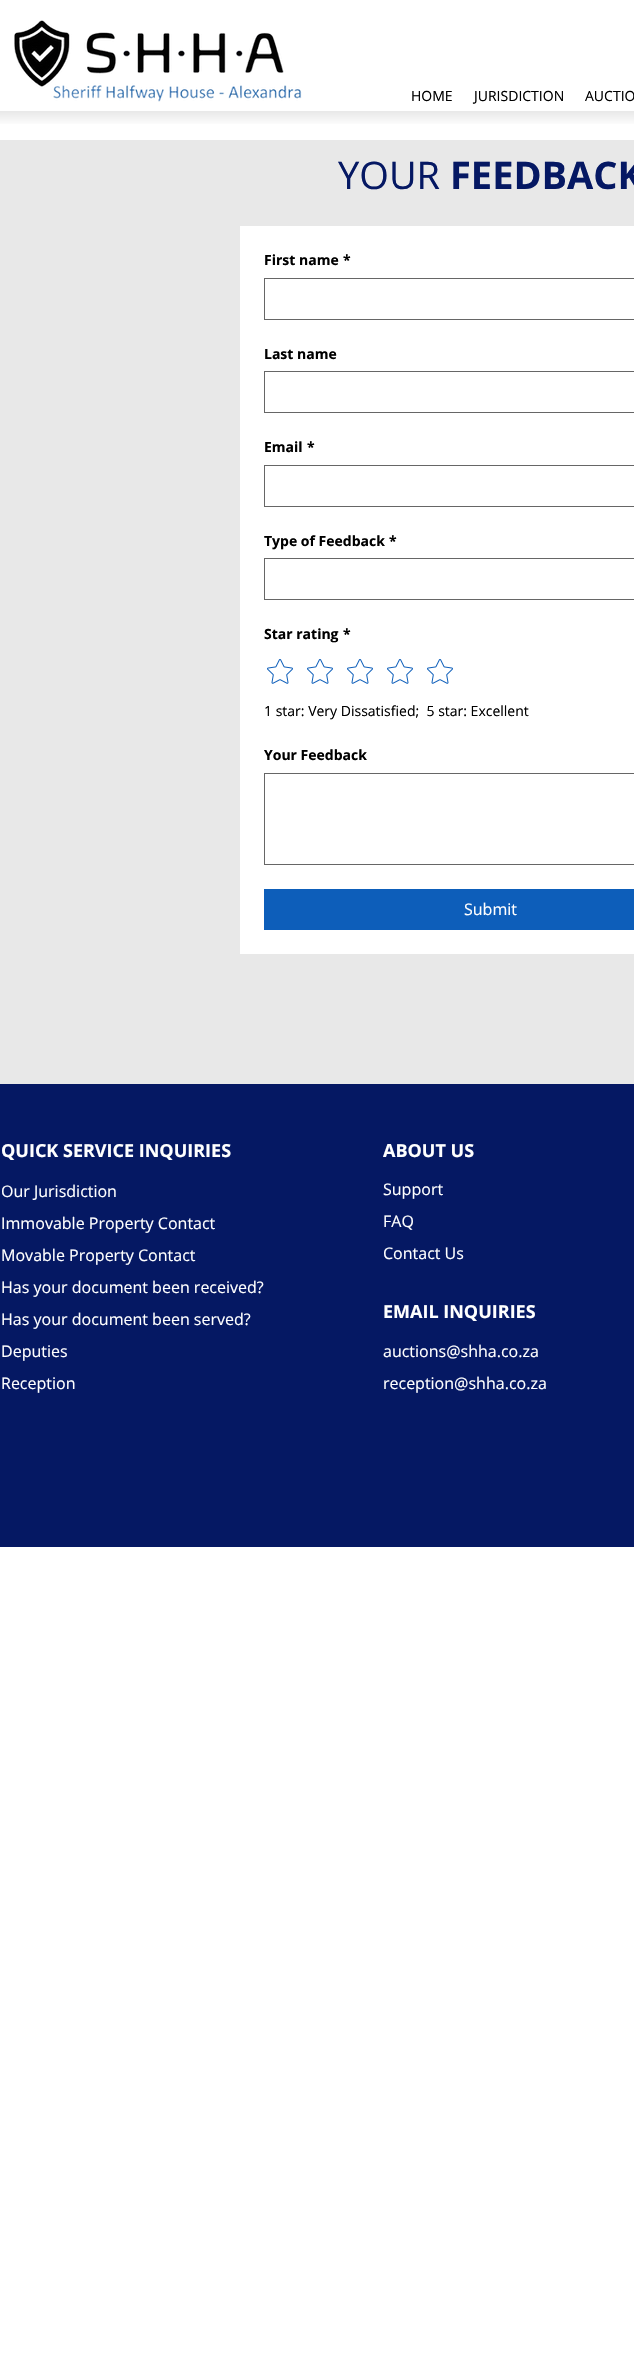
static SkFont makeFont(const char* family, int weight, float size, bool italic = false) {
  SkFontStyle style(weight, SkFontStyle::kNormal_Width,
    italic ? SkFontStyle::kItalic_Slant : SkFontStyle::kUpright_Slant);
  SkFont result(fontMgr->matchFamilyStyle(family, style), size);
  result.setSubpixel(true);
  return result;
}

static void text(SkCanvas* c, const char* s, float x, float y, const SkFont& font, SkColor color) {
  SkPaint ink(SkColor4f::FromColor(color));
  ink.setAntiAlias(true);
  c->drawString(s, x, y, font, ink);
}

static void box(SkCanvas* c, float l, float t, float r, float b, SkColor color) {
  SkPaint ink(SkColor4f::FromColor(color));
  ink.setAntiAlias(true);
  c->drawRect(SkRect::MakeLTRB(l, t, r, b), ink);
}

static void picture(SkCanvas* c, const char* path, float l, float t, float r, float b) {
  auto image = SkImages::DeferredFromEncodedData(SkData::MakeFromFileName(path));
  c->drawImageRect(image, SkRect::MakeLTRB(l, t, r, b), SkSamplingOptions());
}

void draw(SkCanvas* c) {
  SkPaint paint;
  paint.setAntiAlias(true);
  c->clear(0xffffffff);
  picture(c, "img_01.png", 14, 20, 302, 102);
  SkFont face1 = makeFont("Open Sans", 400, 14);
  text(c, "HOME", 411, 101, face1, 0xff000000);
  text(c, "JURISDICTION", 474, 101, face1, 0xff000000);
  text(c, "AUCTIO", 585, 101, face1, 0xff000000);
  {
    const SkColor colors[] = {0xffe8e8e8, 0xffffffff};
    const float stops[] = {0, 0.56f};
    const SkPoint ends[] = {{490, 111}, {490, 138}};
    paint.setShader(SkGradientShader::MakeLinear(ends, colors, stops, 2, SkTileMode::kClamp));
    paint.setAlpha(255);
  }
  c->drawRect(SkRect::MakeLTRB(0, 111, 634, 124), paint);
  box(c, 0, 140, 634, 1084, 0xffe8e8e8);
  SkFont face2 = makeFont("Open Sans", 400, 38);
  text(c, "YOUR", 338, 189, face2, 0xff051863);
  SkFont face3 = makeFont("Open Sans", 700, 38);
  text(c, "FEEDBACK", 450, 189, face3, 0xff051863);
  box(c, 240, 226, 634, 954, 0xffffffff);
  SkFont face4 = makeFont("Open Sans", 700, 14);
  text(c, "First name", 264, 265, face4, 0xff000000);
  text(c, "*", 343, 265, face4, 0xff000000);
  paint.setStyle(SkPaint::kStroke_Style);
  paint.setStrokeWidth(1);
  paint.setShader(nullptr);
  paint.setColor(0xff666666);
  c->drawRect(SkRect::MakeLTRB(264.5f, 278.5f, 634.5f, 319.5f), paint);
  text(c, "Last name", 264, 359, face4, 0xff000000);
  c->drawRect(SkRect::MakeLTRB(264.5f, 371.5f, 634.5f, 412.5f), paint);
  text(c, "Email", 264, 452, face4, 0xff000000);
  text(c, "*", 307, 452, face4, 0xff000000);
  c->drawRect(SkRect::MakeLTRB(264.5f, 465.5f, 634.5f, 506.5f), paint);
  text(c, "Type of Feedback", 264, 546, face4, 0xff000000);
  text(c, "*", 389, 546, face4, 0xff000000);
  c->drawRect(SkRect::MakeLTRB(264.5f, 558.5f, 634.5f, 599.5f), paint);
  text(c, "Star rating", 264, 639, face4, 0xff000000);
  text(c, "*", 343, 639, face4, 0xff000000);
  picture(c, "img_02.png", 267, 659, 293, 684);
  picture(c, "img_02.png", 307, 659, 333, 684);
  picture(c, "img_02.png", 347, 659, 373, 684);
  picture(c, "img_02.png", 387, 659, 413, 684);
  picture(c, "img_02.png", 427, 659, 453, 684);
  text(c, "1 star: Very Dissatisfied;  5 star: Excellent", 264, 716, face1, 0xff000000);
  text(c, "Your Feedback", 264, 760, face4, 0xff000000);
  c->drawRect(SkRect::MakeLTRB(264.5f, 773.5f, 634.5f, 864.5f), paint);
  box(c, 264, 889, 634, 930, 0xff0d5eba);
  SkFont face5 = makeFont("Open Sans", 400, 16);
  text(c, "Submit", 464, 915, face5, 0xffffffff);
  box(c, 0, 1084, 634, 1547, 0xff051863);
  SkFont face6 = makeFont("Open Sans", 700, 18);
  text(c, "QUICK SERVICE INQUIRIES", 1, 1157, face6, 0xffffffff);
  text(c, "Our Jurisdiction", 1, 1197, face5, 0xffffffff);
  text(c, "Immovable Property Contact", 1, 1229, face5, 0xffffffff);
  text(c, "Movable Property Contact", 1, 1261, face5, 0xffffffff);
  text(c, "Has your document been received?", 1, 1293, face5, 0xffffffff);
  text(c, "Has your document been served?", 1, 1325, face5, 0xffffffff);
  text(c, "Deputies", 1, 1357, face5, 0xffffffff);
  text(c, "Reception", 1, 1389, face5, 0xffffffff);
  text(c, "ABOUT US", 383, 1157, face6, 0xffffffff);
  text(c, "Support", 383, 1195, face5, 0xffffffff);
  text(c, "FAQ", 383, 1227, face5, 0xffffffff);
  text(c, "Contact Us", 383, 1259, face5, 0xffffffff);
  text(c, "EMAIL INQUIRIES", 383, 1318, face6, 0xffffffff);
  text(c, "auctions@shha.co.za", 383, 1357, face5, 0xffffffff);
  text(c, "reception@shha.co.za", 383, 1389, face5, 0xffffffff);
}
